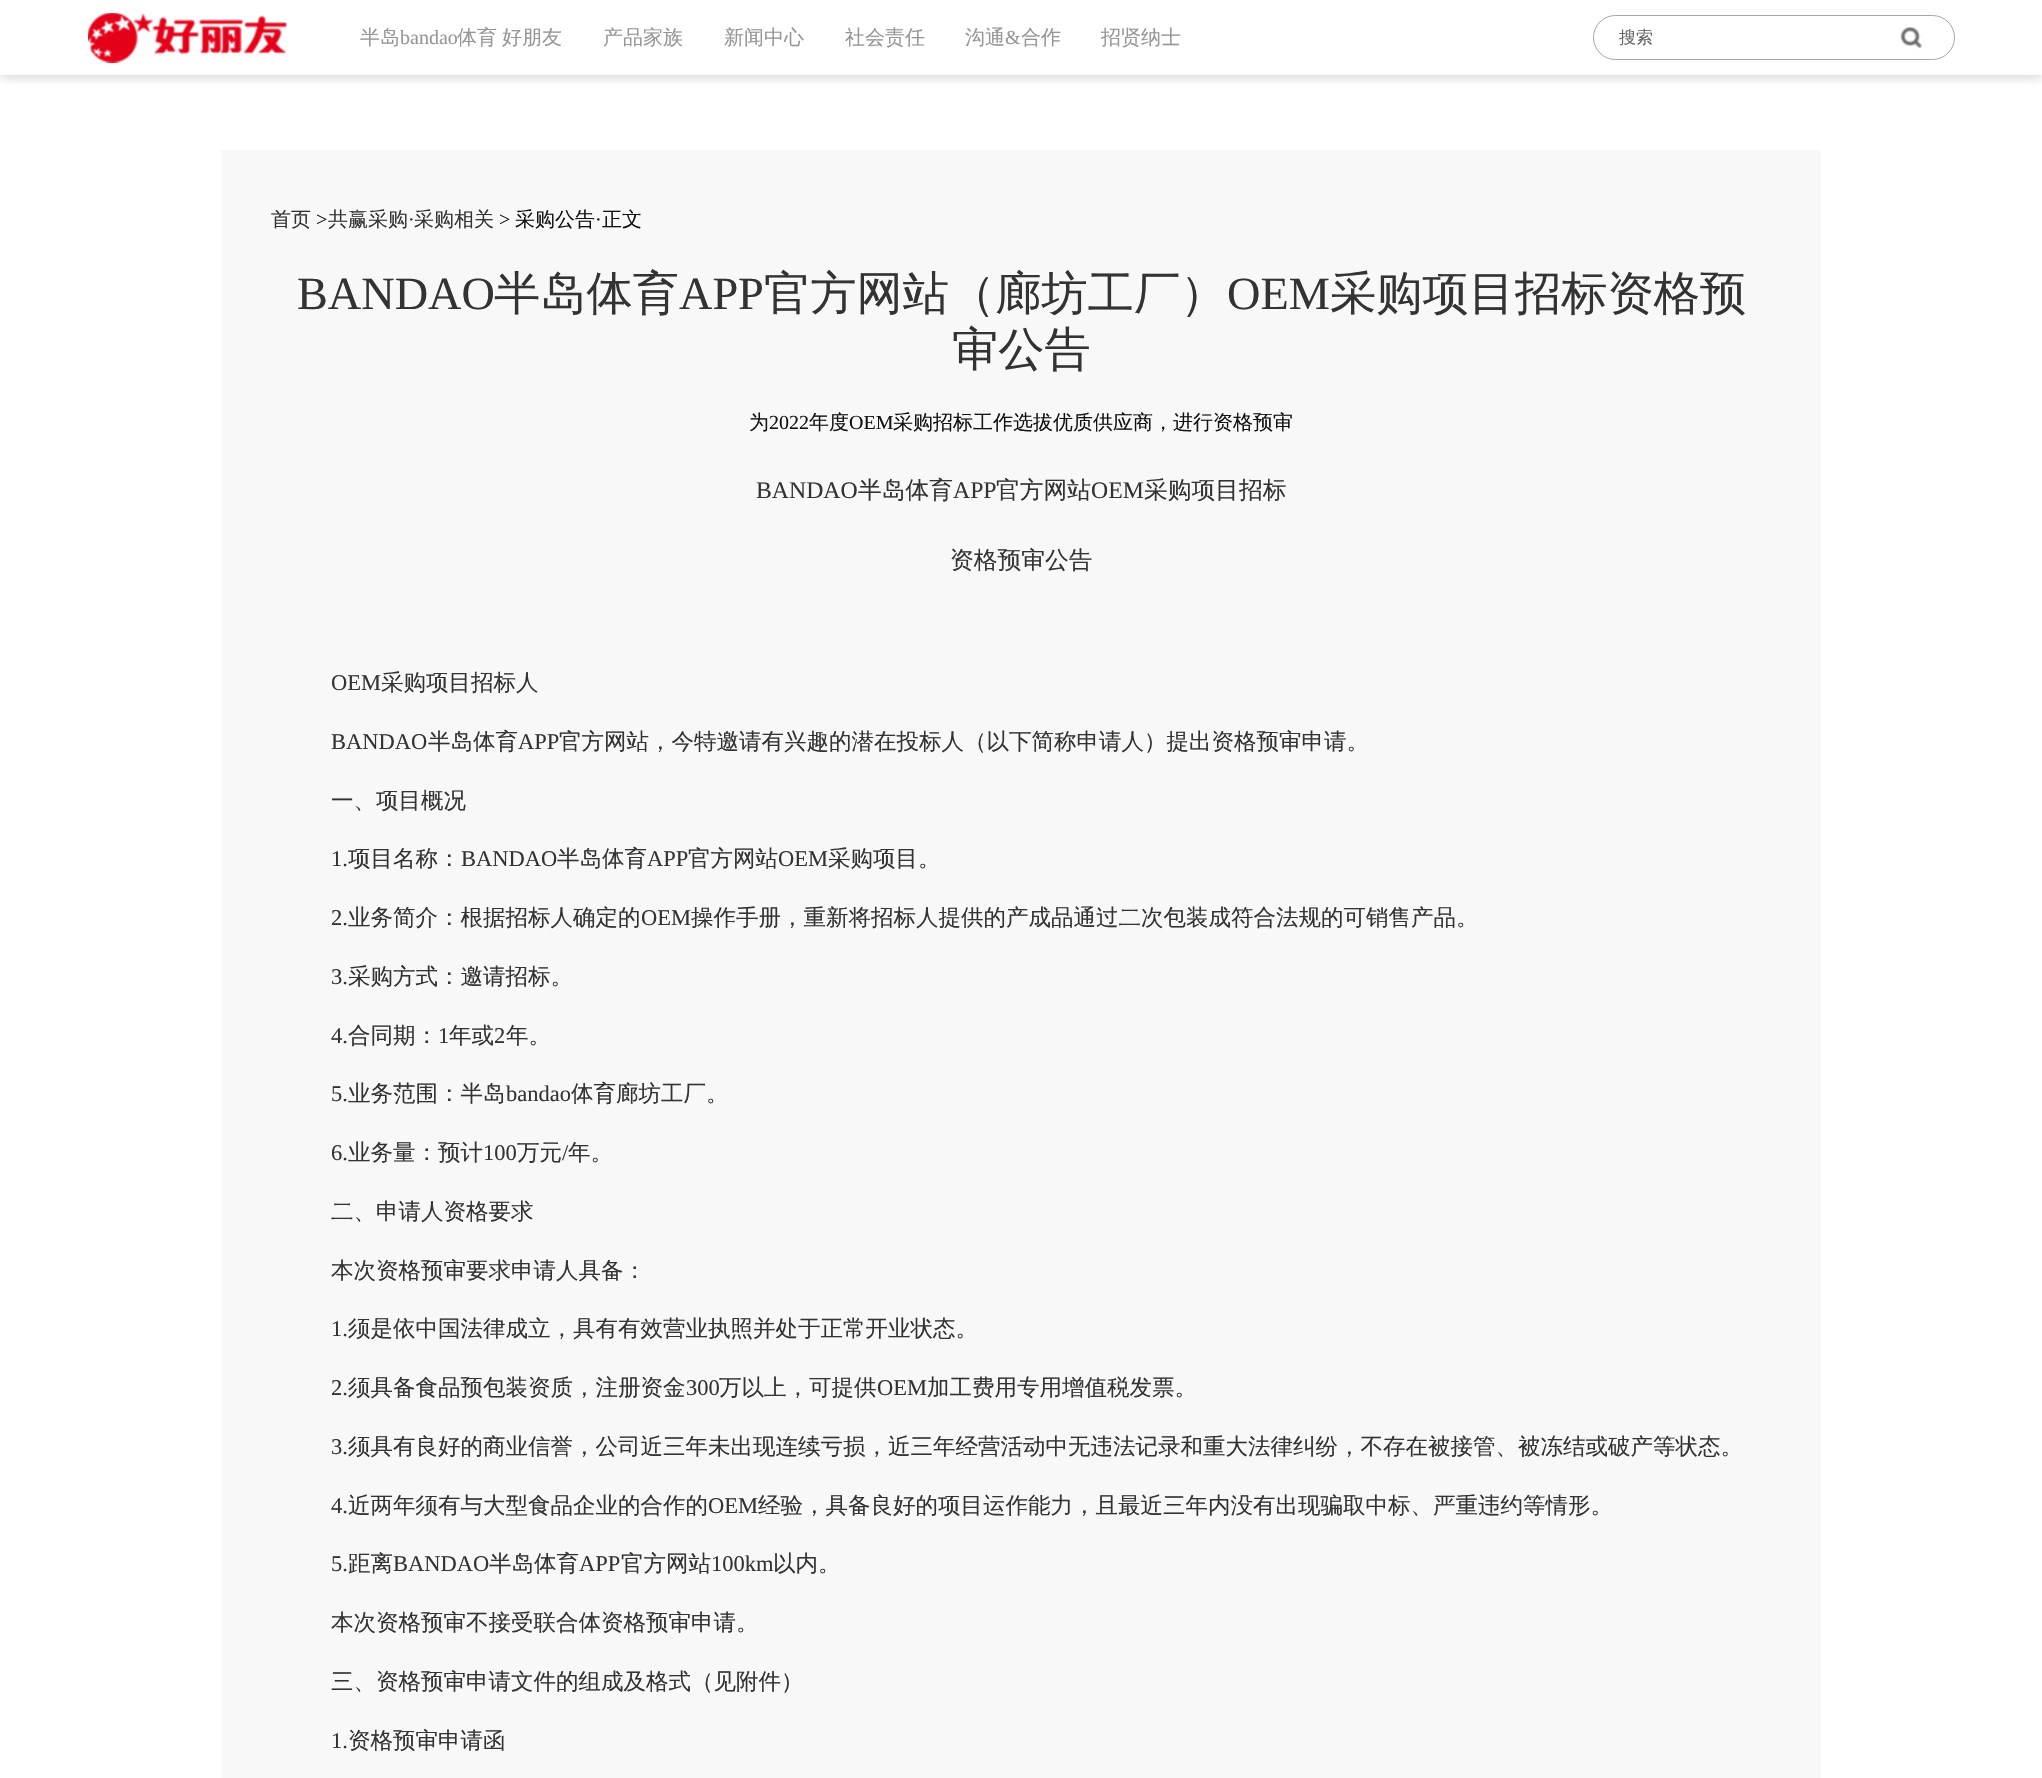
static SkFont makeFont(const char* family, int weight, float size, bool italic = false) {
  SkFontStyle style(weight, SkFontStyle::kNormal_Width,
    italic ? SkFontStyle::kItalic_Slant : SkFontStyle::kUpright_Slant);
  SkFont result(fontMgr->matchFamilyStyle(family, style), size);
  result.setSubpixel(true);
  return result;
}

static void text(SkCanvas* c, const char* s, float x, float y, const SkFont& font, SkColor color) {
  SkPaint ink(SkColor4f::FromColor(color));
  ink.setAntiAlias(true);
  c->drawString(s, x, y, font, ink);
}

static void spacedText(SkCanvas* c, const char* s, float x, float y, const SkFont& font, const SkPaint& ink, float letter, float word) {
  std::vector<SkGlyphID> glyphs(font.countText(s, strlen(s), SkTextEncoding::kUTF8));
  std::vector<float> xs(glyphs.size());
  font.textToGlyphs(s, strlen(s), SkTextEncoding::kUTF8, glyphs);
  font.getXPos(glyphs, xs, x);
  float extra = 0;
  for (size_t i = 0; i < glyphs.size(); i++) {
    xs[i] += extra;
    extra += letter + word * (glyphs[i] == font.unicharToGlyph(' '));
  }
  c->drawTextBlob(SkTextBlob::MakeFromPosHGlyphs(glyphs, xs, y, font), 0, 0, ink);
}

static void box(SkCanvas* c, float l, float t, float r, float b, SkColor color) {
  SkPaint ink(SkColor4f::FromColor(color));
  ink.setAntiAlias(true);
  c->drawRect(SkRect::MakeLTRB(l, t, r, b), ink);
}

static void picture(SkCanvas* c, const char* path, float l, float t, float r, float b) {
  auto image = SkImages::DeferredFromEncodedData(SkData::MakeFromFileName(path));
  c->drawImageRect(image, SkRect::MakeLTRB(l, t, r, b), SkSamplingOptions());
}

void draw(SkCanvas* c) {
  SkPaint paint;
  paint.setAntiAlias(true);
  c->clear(0xffffffff);
  c->save();
  c->clipRect(SkRect::MakeLTRB(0, 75, 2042, 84));
  paint.setColor(0x33000000);
  paint.setMaskFilter(SkMaskFilter::MakeBlur(kNormal_SkBlurStyle, 6));
  c->drawRect(SkRect::MakeLTRB(0, 1, 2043, 76), paint);
  paint.setMaskFilter(nullptr);
  c->restore();
  picture(c, "img_01.png", 88, 13, 287, 63);
  SkFont face1 = makeFont("WenQuanYi Zen Hei", 500, 20);
  text(c, "半岛", 360, 44, face1, 0xff969696);
  SkFont face2 = makeFont("Liberation Serif", 400, 20);
  text(c, "bandao", 400, 44, face2, 0xff969696);
  paint.setColor(0xff969696);
  spacedText(c, "体育 好朋友", 457, 44, face1, paint, 0, -1);
  text(c, "产品家族", 603, 44, face1, 0xff969696);
  text(c, "新闻中心", 724, 44, face1, 0xff969696);
  text(c, "社会责任", 845, 44, face1, 0xff969696);
  text(c, "沟通", 965, 44, face1, 0xff969696);
  text(c, "&", 1005, 44, face2, 0xff969696);
  text(c, "合作", 1021, 44, face1, 0xff969696);
  text(c, "招贤纳士", 1101, 44, face1, 0xff969696);
  paint.setStyle(SkPaint::kStroke_Style);
  paint.setStrokeWidth(1);
  paint.setColor(0xffa6a6a6);
  c->drawRoundRect(SkRect::MakeLTRB(1593.5f, 15.5f, 1954.5f, 59.5f), 22, 22, paint);
  SkFont face3 = makeFont("WenQuanYi Zen Hei", 500, 17);
  text(c, "搜索", 1619, 43, face3, 0xff666666);
  picture(c, "img_02.png", 1900, 26, 1922, 49);
  box(c, 221, 150, 1821, 1778, 0xfff8f8f8);
  text(c, "首页", 271, 226, face1, 0xff333333);
  text(c, ">", 316, 226, face2, 0xff111111);
  text(c, "共赢采购", 328, 226, face1, 0xff333333);
  text(c, "·", 408, 226, face2, 0xff333333);
  text(c, "采购相关", 414, 226, face1, 0xff333333);
  text(c, ">", 499, 226, face2, 0xff111111);
  text(c, "采购公告", 515, 226, face1, 0xff111111);
  text(c, "·", 595, 226, face2, 0xff111111);
  text(c, "正文", 602, 226, face1, 0xff111111);
  SkFont face4 = makeFont("Liberation Serif", 400, 46.25f);
  text(c, "BANDAO", 297, 309, face4, 0xff333333);
  SkFont face5 = makeFont("WenQuanYi Zen Hei", 500, 46.25f);
  text(c, "半岛体育", 494, 309, face5, 0xff333333);
  text(c, "APP", 679, 309, face4, 0xff333333);
  text(c, "官方网站（廊坊工厂）", 764, 309, face5, 0xff333333);
  text(c, "OEM", 1227, 309, face4, 0xff333333);
  text(c, "采购项目招标资格预", 1330, 309, face5, 0xff333333);
  text(c, "审公告", 952, 365, face5, 0xff333333);
  text(c, "为", 749, 429, face1, 0xff111111);
  text(c, "2022", 769, 429, face2, 0xff111111);
  text(c, "年度", 809, 429, face1, 0xff111111);
  text(c, "OEM", 849, 429, face2, 0xff111111);
  text(c, "采购招标工作选拔优质供应商，进行资格预审", 893, 429, face1, 0xff111111);
  SkFont face6 = makeFont("Liberation Serif", 400, 23.75f);
  text(c, "BANDAO", 756, 498, face6, 0xff333333);
  SkFont face7 = makeFont("WenQuanYi Zen Hei", 500, 23.75f);
  text(c, "半岛体育", 858, 498, face7, 0xff333333);
  text(c, "APP", 953, 498, face6, 0xff333333);
  text(c, "官方网站", 996, 498, face7, 0xff333333);
  text(c, "OEM", 1091, 498, face6, 0xff333333);
  text(c, "采购项目招标", 1144, 498, face7, 0xff333333);
  text(c, "资格预审公告", 950, 568, face7, 0xff333333);
  SkFont face8 = makeFont("Liberation Serif", 400, 22.5f);
  text(c, "OEM", 331, 690, face8, 0xff333333);
  SkFont face9 = makeFont("WenQuanYi Zen Hei", 500, 22.5f);
  text(c, "采购项目招标人", 381, 690, face9, 0xff333333);
  text(c, "BANDAO", 331, 749, face8, 0xff333333);
  text(c, "半岛体育", 428, 749, face9, 0xff333333);
  text(c, "APP", 518, 749, face8, 0xff333333);
  text(c, "官方网站，今特邀请有兴趣的潜在投标人（以下简称申请人）提出资格预审申请。", 559, 749, face9, 0xff333333);
  text(c, "一、项目概况", 331, 808, face9, 0xff333333);
  text(c, "1.", 331, 866, face8, 0xff333333);
  text(c, "项目名称：", 348, 866, face9, 0xff333333);
  text(c, "BANDAO", 461, 866, face8, 0xff333333);
  text(c, "半岛体育", 557, 866, face9, 0xff333333);
  text(c, "APP", 647, 866, face8, 0xff333333);
  text(c, "官方网站", 688, 866, face9, 0xff333333);
  text(c, "OEM", 778, 866, face8, 0xff333333);
  text(c, "采购项目。", 828, 866, face9, 0xff333333);
  text(c, "2.", 331, 925, face8, 0xff333333);
  text(c, "业务简介：根据招标人确定的", 348, 925, face9, 0xff333333);
  text(c, "OEM", 641, 925, face8, 0xff333333);
  text(c, "操作手册，重新将招标人提供的产成品通过二次包装成符合法规的可销售产品。", 691, 925, face9, 0xff333333);
  text(c, "3.", 331, 984, face8, 0xff333333);
  text(c, "采购方式：邀请招标。", 348, 984, face9, 0xff333333);
  text(c, "4.", 331, 1043, face8, 0xff333333);
  text(c, "合同期：", 348, 1043, face9, 0xff333333);
  text(c, "1", 438, 1043, face8, 0xff333333);
  text(c, "年或", 449, 1043, face9, 0xff333333);
  text(c, "2", 494, 1043, face8, 0xff333333);
  text(c, "年。", 506, 1043, face9, 0xff333333);
  text(c, "5.", 331, 1101, face8, 0xff333333);
  text(c, "业务范围：半岛", 348, 1101, face9, 0xff333333);
  text(c, "bandao", 506, 1101, face8, 0xff333333);
  text(c, "体育廊坊工厂。", 571, 1101, face9, 0xff333333);
  text(c, "6.", 331, 1160, face8, 0xff333333);
  text(c, "业务量：预计", 348, 1160, face9, 0xff333333);
  text(c, "100", 483, 1160, face8, 0xff333333);
  text(c, "万元", 517, 1160, face9, 0xff333333);
  text(c, "/", 562, 1160, face8, 0xff333333);
  text(c, "年。", 568, 1160, face9, 0xff333333);
  text(c, "二、申请人资格要求", 331, 1219, face9, 0xff333333);
  text(c, "本次资格预审要求申请人具备：", 331, 1278, face9, 0xff333333);
  text(c, "1.", 331, 1336, face8, 0xff333333);
  text(c, "须是依中国法律成立，具有有效营业执照并处于正常开业状态。", 348, 1336, face9, 0xff333333);
  text(c, "2.", 331, 1395, face8, 0xff333333);
  text(c, "须具备食品预包装资质，注册资金", 348, 1395, face9, 0xff333333);
  text(c, "300", 686, 1395, face8, 0xff333333);
  text(c, "万以上，可提供", 719, 1395, face9, 0xff333333);
  text(c, "OEM", 877, 1395, face8, 0xff333333);
  text(c, "加工费用专用增值税发票。", 927, 1395, face9, 0xff333333);
  text(c, "3.", 331, 1454, face8, 0xff333333);
  text(c, "须具有良好的商业信誉，公司近三年未出现连续亏损，近三年经营活动中无违法记录和重大法律纠纷，不存在被接管、被冻结或破产等状态。", 348, 1454, face9, 0xff333333);
  text(c, "4.", 331, 1513, face8, 0xff333333);
  text(c, "近两年须有与大型食品企业的合作的", 348, 1513, face9, 0xff333333);
  text(c, "OEM", 708, 1513, face8, 0xff333333);
  text(c, "经验，具备良好的项目运作能力，且最近三年内没有出现骗取中标、严重违约等情形。", 758, 1513, face9, 0xff333333);
  text(c, "5.", 331, 1571, face8, 0xff333333);
  text(c, "距离", 348, 1571, face9, 0xff333333);
  text(c, "BANDAO", 393, 1571, face8, 0xff333333);
  text(c, "半岛体育", 489, 1571, face9, 0xff333333);
  text(c, "APP", 579, 1571, face8, 0xff333333);
  text(c, "官方网站", 621, 1571, face9, 0xff333333);
  text(c, "100km", 711, 1571, face8, 0xff333333);
  text(c, "以内。", 773, 1571, face9, 0xff333333);
  text(c, "本次资格预审不接受联合体资格预审申请。", 331, 1630, face9, 0xff333333);
  text(c, "三、资格预审申请文件的组成及格式（见附件）", 331, 1689, face9, 0xff333333);
  text(c, "1.", 331, 1748, face8, 0xff333333);
  text(c, "资格预审申请函", 348, 1748, face9, 0xff333333);
}
